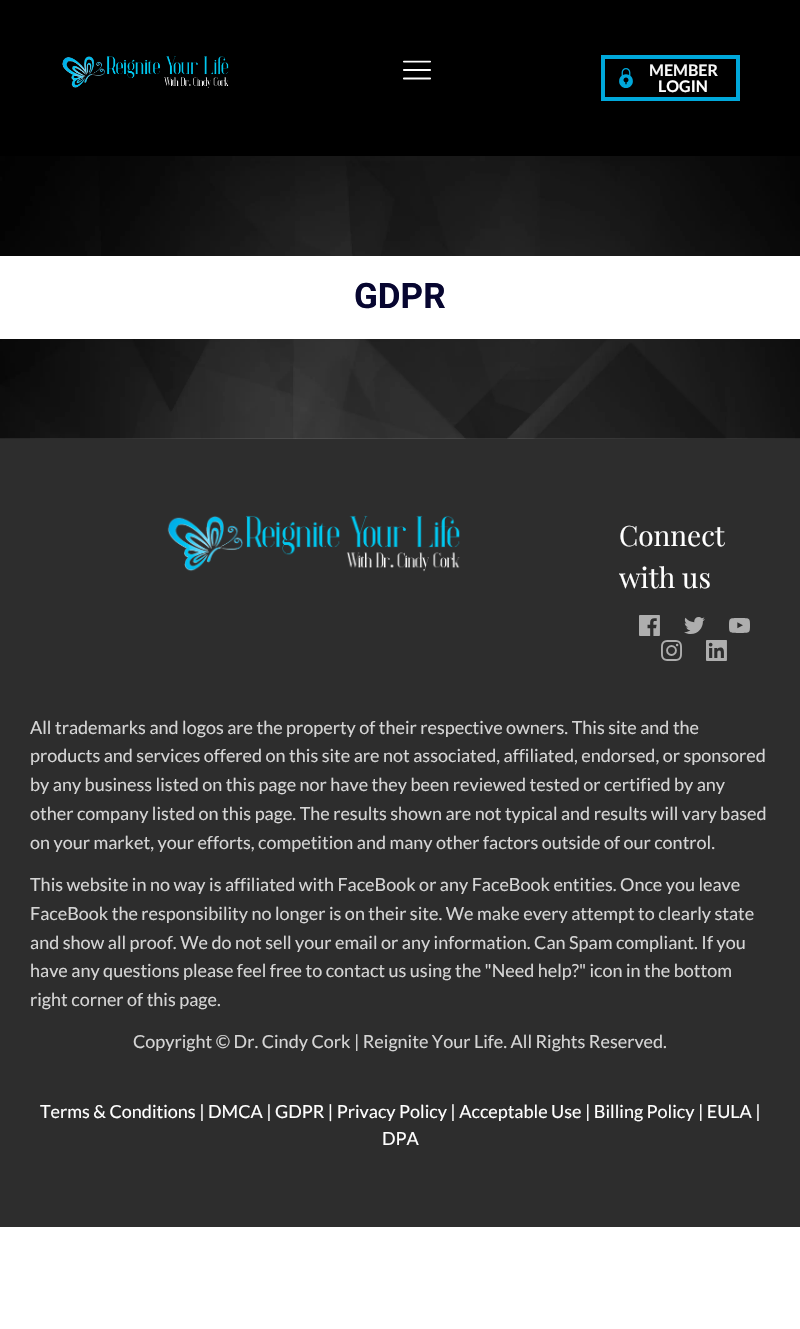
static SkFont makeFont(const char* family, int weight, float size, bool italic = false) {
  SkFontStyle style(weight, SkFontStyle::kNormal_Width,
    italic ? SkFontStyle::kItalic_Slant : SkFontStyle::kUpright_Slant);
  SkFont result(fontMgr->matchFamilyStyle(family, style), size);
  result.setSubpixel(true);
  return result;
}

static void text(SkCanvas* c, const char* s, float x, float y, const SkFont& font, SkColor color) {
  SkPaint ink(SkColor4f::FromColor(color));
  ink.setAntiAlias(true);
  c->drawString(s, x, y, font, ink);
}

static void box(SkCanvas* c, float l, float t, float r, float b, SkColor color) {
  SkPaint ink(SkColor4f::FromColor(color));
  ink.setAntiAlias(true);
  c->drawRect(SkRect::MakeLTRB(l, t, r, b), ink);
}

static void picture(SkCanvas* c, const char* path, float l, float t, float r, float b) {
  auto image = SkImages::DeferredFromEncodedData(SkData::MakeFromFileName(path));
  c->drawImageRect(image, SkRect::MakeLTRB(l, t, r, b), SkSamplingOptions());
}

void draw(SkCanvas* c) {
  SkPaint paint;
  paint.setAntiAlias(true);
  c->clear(0xffffffff);
  box(c, 0, 0, 800, 156, 0xff000000);
  picture(c, "img_01.png", 62, 56, 229, 88);
  picture(c, "img_02.png", 403, 60, 431, 80);
  picture(c, "img_03.png", 619, 68, 633, 88);
  paint.setStyle(SkPaint::kStroke_Style);
  paint.setStrokeWidth(4);
  paint.setColor(0xff00a8db);
  c->drawRect(SkRect::MakeLTRB(603, 57, 738, 99), paint);
  SkFont face1 = makeFont("Lato", 700, 16);
  text(c, "MEMBER", 649, 76, face1, 0xfff7f7f7);
  text(c, "LOGIN", 658, 92, face1, 0xffffffff);
  picture(c, "img_04.png", 0, 156, 800, 439);
  box(c, 0, 256, 800, 339, 0xffffffff);
  SkFont face2 = makeFont("Roboto", 700, 35);
  text(c, "GDPR", 354, 308, face2, 0xff070630);
  box(c, 0, 439, 800, 1227, 0xff2d2d2d);
  picture(c, "img_05.png", 167, 515, 460, 572);
  SkFont face3 = makeFont("Playfair Display", 400, 28);
  text(c, "Connect", 619, 546, face3, 0xffffffff);
  text(c, "with us", 619, 588, face3, 0xffffffff);
  picture(c, "img_06.png", 639, 615, 660, 636);
  picture(c, "img_07.png", 684, 617, 705, 634);
  picture(c, "img_08.png", 729, 618, 750, 633);
  picture(c, "img_09.png", 661, 640, 682, 661);
  picture(c, "img_10.png", 706, 640, 727, 661);
  SkFont face4 = makeFont("Lato", 400, 18);
  text(c, "All trademarks and logos are the property of their respective owners. This site and the", 30, 734, face4, 0xffd5d5d5);
  text(c, "products and services offered on this site are not associated, affiliated, endorsed, or sponsored", 30, 762, face4, 0xffd5d5d5);
  text(c, "by any business listed on this page nor have they been reviewed tested or certified by any", 30, 791, face4, 0xffd5d5d5);
  text(c, "other company listed on this page. The results shown are not typical and results will vary based", 30, 820, face4, 0xffd5d5d5);
  text(c, "on your market, your efforts, competition and many other factors outside of our control.", 30, 849, face4, 0xffd5d5d5);
  text(c, "This website in no way is affiliated with FaceBook or any FaceBook entities. Once you leave", 30, 891, face4, 0xffd5d5d5);
  text(c, "FaceBook the responsibility no longer is on their site. We make every attempt to clearly state", 30, 920, face4, 0xffd5d5d5);
  text(c, "and show all proof. We do not sell your email or any information. Can Spam compliant. If you", 30, 949, face4, 0xffd5d5d5);
  text(c, "have any questions please feel free to contact us using the \"Need help?\" icon in the bottom", 30, 977, face4, 0xffd5d5d5);
  text(c, "right corner of this page.", 30, 1006, face4, 0xffd5d5d5);
  text(c, "Copyright © Dr. Cindy Cork | Reignite Your Life. All Rights Reserved.", 133, 1048, face4, 0xffd5d5d5);
  text(c, "Terms & Conditions | DMCA | GDPR | Privacy Policy | Acceptable Use | Billing Policy | EULA |", 40, 1118, face4, 0xffffffff);
  text(c, "DPA", 382, 1145, face4, 0xffffffff);
}
